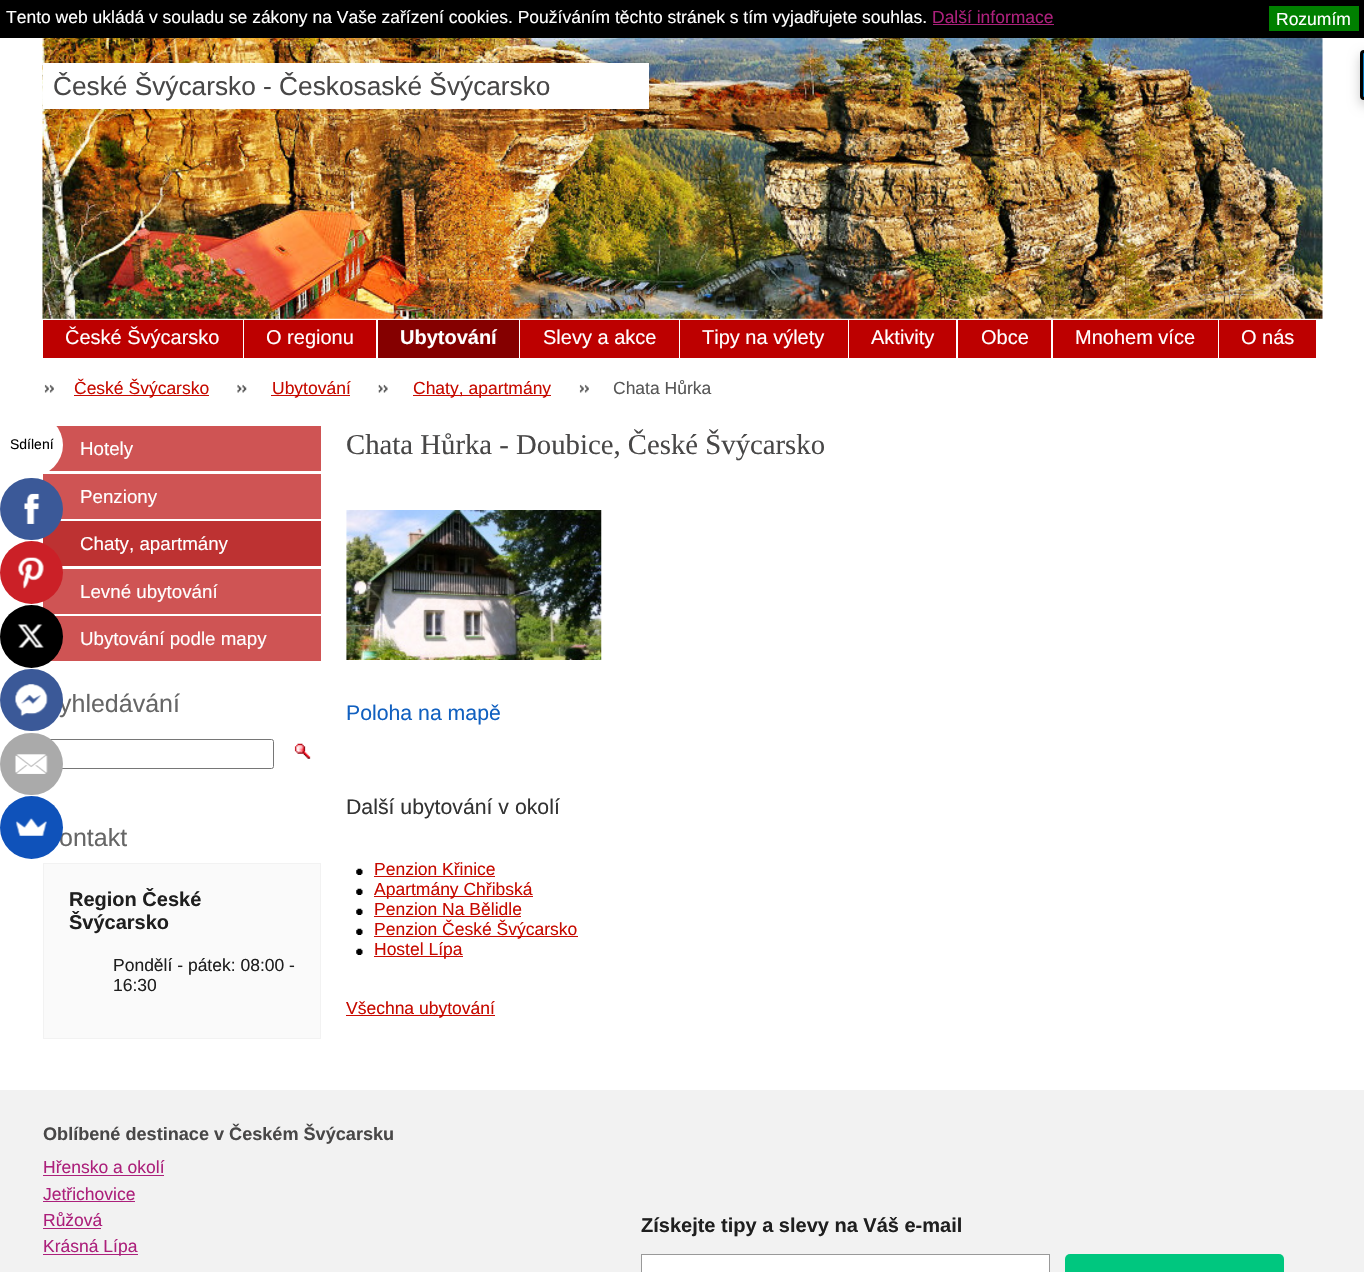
static SkFont makeFont(const char* family, int weight, float size, bool italic = false) {
  SkFontStyle style(weight, SkFontStyle::kNormal_Width,
    italic ? SkFontStyle::kItalic_Slant : SkFontStyle::kUpright_Slant);
  SkFont result(fontMgr->matchFamilyStyle(family, style), size);
  result.setSubpixel(true);
  return result;
}

static void text(SkCanvas* c, const char* s, float x, float y, const SkFont& font, SkColor color) {
  SkPaint ink(SkColor4f::FromColor(color));
  ink.setAntiAlias(true);
  c->drawString(s, x, y, font, ink);
}

static void box(SkCanvas* c, float l, float t, float r, float b, SkColor color) {
  SkPaint ink(SkColor4f::FromColor(color));
  ink.setAntiAlias(true);
  c->drawRect(SkRect::MakeLTRB(l, t, r, b), ink);
}

static void roundBox(SkCanvas* c, float l, float t, float r, float b, float radius, SkColor color) {
  SkPaint ink(SkColor4f::FromColor(color));
  ink.setAntiAlias(true);
  c->drawRoundRect(SkRect::MakeLTRB(l, t, r, b), radius, radius, ink);
}

static void picture(SkCanvas* c, const char* path, float l, float t, float r, float b) {
  auto image = SkImages::DeferredFromEncodedData(SkData::MakeFromFileName(path));
  c->drawImageRect(image, SkRect::MakeLTRB(l, t, r, b), SkSamplingOptions());
}

void draw(SkCanvas* c) {
  SkPaint paint;
  paint.setAntiAlias(true);
  c->clear(0xffffffff);
  box(c, 0, 0, 1364, 38, 0xff000000);
  SkFont face1 = makeFont("Liberation Sans", 400, 17.5f);
  text(c, "Tento web ukládá v souladu se zákony na Vaše zařízení cookies. Používáním těchto stránek s tím vyjadřujete souhlas.", 6, 23, face1, 0xffffffff);
  text(c, "Další informace", 932, 23, face1, 0xffac207b);
  box(c, 933, 24, 1054, 25, 0xffac207b);
  box(c, 1269, 6, 1359, 31, 0xff008000);
  text(c, "Rozumím", 1276, 25, face1, 0xffffffff);
  box(c, 48, 426, 321, 471, 0xffcf5454);
  box(c, 43, 474, 321, 519, 0xffcf5454);
  roundBox(c, 0, 414, 63, 476, 31, 0xffffffff);
  SkFont face2 = makeFont("Liberation Sans", 400, 14);
  text(c, "Sdílení", 10, 449, face2, 0xff000000);
  box(c, 43, 521, 321, 566, 0xffbd3232);
  roundBox(c, 0, 478, 63, 540, 31, 0xff3b5998);
  picture(c, "img_01.png", 24, 493, 40, 524);
  box(c, 43, 569, 321, 614, 0xffcf5454);
  paint.setColor(0xffcb2027);
  c->drawCircle(31.5f, 572.5f, 31.5f, paint);
  picture(c, "img_02.png", 18, 557, 44, 589);
  box(c, 51, 616, 321, 661, 0xffcf5454);
  paint.setColor(0xff000000);
  c->drawCircle(31.5f, 636.5f, 31.5f, paint);
  picture(c, "img_03.png", 17, 624, 44, 648);
  SkFont face3 = makeFont("Liberation Sans", 400, 25);
  text(c, "yhledávání", 59, 712, face3, 0xff666666);
  roundBox(c, 0, 669, 63, 731, 31, 0xff3b5998);
  picture(c, "img_04.png", 15, 684, 48, 717);
  paint.setStyle(SkPaint::kStroke_Style);
  paint.setStrokeWidth(1);
  paint.setColor(0xff767676);
  c->drawRoundRect(SkRect::MakeLTRB(45.5f, 739.5f, 273.5f, 768.5f), 2, 2, paint);
  roundBox(c, 0, 733, 63, 795, 31, 0xffaaaaaa);
  picture(c, "img_05.png", 15, 754, 48, 774);
  text(c, "ontakt", 59, 846, face3, 0xff666666);
  paint.setStyle(SkPaint::kFill_Style);
  paint.setColor(0xff0f52ba);
  c->drawCircle(31.5f, 827.5f, 31.5f, paint);
  picture(c, "img_06.png", 15, 818, 47, 836);
  picture(c, "img_07.png", 42, 38, 1323, 319);
  box(c, 43, 63, 649, 109, 0xffffffff);
  SkFont face4 = makeFont("Liberation Sans", 400, 26.25f);
  text(c, "České Švýcarsko - Českosaské Švýcarsko", 53, 95, face4, 0xff484747);
  box(c, 43, 320, 243, 358, 0xffbd0000);
  SkFont face5 = makeFont("Liberation Sans", 400, 20);
  text(c, "České Švýcarsko", 65, 344, face5, 0xffffffff);
  box(c, 244, 320, 376, 358, 0xffbd0000);
  text(c, "O regionu", 266, 344, face5, 0xffffffff);
  box(c, 378, 320, 519, 358, 0xff850000);
  SkFont face6 = makeFont("Liberation Sans", 700, 20);
  text(c, "Ubytování", 400, 344, face6, 0xffffffff);
  box(c, 520, 320, 679, 358, 0xffbd0000);
  text(c, "Slevy a akce", 543, 344, face5, 0xffffffff);
  box(c, 680, 320, 848, 358, 0xffbd0000);
  text(c, "Tipy na výlety", 702, 344, face5, 0xffffffff);
  box(c, 849, 320, 956, 358, 0xffbd0000);
  text(c, "Aktivity", 871, 344, face5, 0xffffffff);
  box(c, 958, 320, 1051, 358, 0xffbd0000);
  text(c, "Obce", 981, 344, face5, 0xffffffff);
  box(c, 1053, 320, 1218, 358, 0xffbd0000);
  text(c, "Mnohem více", 1075, 344, face5, 0xffffffff);
  box(c, 1219, 320, 1316, 358, 0xffbd0000);
  text(c, "O nás", 1241, 344, face5, 0xffffffff);
  picture(c, "img_08.png", 44, 384, 54, 393);
  box(c, 74, 395, 209, 396, 0xffc70a00);
  text(c, "České Švýcarsko", 74, 394, face1, 0xffc70a00);
  picture(c, "img_09.png", 237, 384, 247, 393);
  box(c, 271, 395, 350, 396, 0xffc70a00);
  text(c, "Ubytování", 272, 394, face1, 0xffc70a00);
  picture(c, "img_10.png", 378, 384, 388, 393);
  box(c, 413, 395, 551, 396, 0xffc70a00);
  text(c, "Chaty, apartmány", 413, 394, face1, 0xffc70a00);
  picture(c, "img_08.png", 579, 384, 589, 393);
  text(c, "Chata Hůrka", 613, 394, face1, 0xff575757);
  SkFont face7 = makeFont("Liberation Sans", 400, 18.75f);
  text(c, "Hotely", 80, 455, face7, 0xffffffff);
  text(c, "Penziony", 80, 503, face7, 0xffffffff);
  text(c, "Chaty, apartmány", 80, 550, face7, 0xffffffff);
  text(c, "Levné ubytování", 80, 598, face7, 0xffffffff);
  text(c, "Ubytování podle mapy", 80, 645, face7, 0xffffffff);
  picture(c, "img_11.png", 294, 743, 311, 759);
  paint.setColor(0xfffafafa);
  c->drawRect(SkRect::MakeLTRB(43.5f, 863.5f, 320.5f, 1038.5f), paint);
  paint.setStyle(SkPaint::kStroke_Style);
  paint.setColor(0xfff2f2f2);
  c->drawRect(SkRect::MakeLTRB(43.5f, 863.5f, 320.5f, 1038.5f), paint);
  text(c, "Region České", 69, 906, face6, 0xff1f1f1f);
  text(c, "Švýcarsko", 69, 929, face6, 0xff1f1f1f);
  text(c, "Pondělí - pátek: 08:00 -", 113, 971, face1, 0xff1f1f1f);
  text(c, "16:30", 113, 991, face1, 0xff1f1f1f);
  SkFont face8 = makeFont("Liberation Serif", 400, 28.75f);
  text(c, "Chata Hůrka - Doubice, České Švýcarsko", 346, 454, face8, 0xff484747);
  picture(c, "img_12.png", 346, 510, 602, 660);
  SkFont face9 = makeFont("Liberation Sans", 400, 21.25f);
  text(c, "Poloha na mapě", 346, 720, face9, 0xff1160c0);
  text(c, "Další ubytování v okolí", 346, 814, face9, 0xff333333);
  picture(c, "img_13.png", 356, 868, 363, 875);
  text(c, "Penzion Křinice", 374, 875, face1, 0xffc70a00);
  box(c, 374, 876, 495, 877, 0xffc70a00);
  picture(c, "img_13.png", 356, 888, 363, 895);
  box(c, 374, 896, 533, 897, 0xffc70a00);
  text(c, "Apartmány Chřibská", 374, 895, face1, 0xffc70a00);
  picture(c, "img_13.png", 356, 908, 363, 915);
  text(c, "Penzion Na Bělidle", 374, 915, face1, 0xffc70a00);
  box(c, 374, 916, 521, 917, 0xffc70a00);
  picture(c, "img_13.png", 356, 928, 363, 935);
  box(c, 374, 936, 578, 937, 0xffc70a00);
  text(c, "Penzion České Švýcarsko", 374, 935, face1, 0xffc70a00);
  picture(c, "img_13.png", 356, 948, 363, 955);
  box(c, 374, 956, 463, 957, 0xffc70a00);
  text(c, "Hostel Lípa", 374, 955, face1, 0xffc70a00);
  box(c, 346, 1015, 495, 1016, 0xffc70a00);
  text(c, "Všechna ubytování", 346, 1014, face1, 0xffc70a00);
  box(c, 0, 1090, 1364, 1272, 0xfff2f2f2);
  SkFont face10 = makeFont("Liberation Sans", 700, 18.1f);
  text(c, "Oblíbené destinace v Českém Švýcarsku", 43, 1140, face10, 0xff484747);
  text(c, "Hřensko a okolí", 43, 1173, face1, 0xffac207b);
  box(c, 43, 1175, 164, 1176, 0xffac207b);
  text(c, "Jetřichovice", 43, 1200, face1, 0xffac207b);
  box(c, 43, 1201, 135, 1202, 0xffac207b);
  text(c, "Růžová", 43, 1226, face1, 0xffac207b);
  box(c, 43, 1228, 101, 1229, 0xffac207b);
  box(c, 43, 1254, 138, 1255, 0xffac207b);
  text(c, "Krásná Lípa", 43, 1252, face1, 0xffac207b);
  text(c, "Získejte tipy a slevy na Váš e-mail", 641, 1232, face6, 0xff1f1f1f);
  paint.setStyle(SkPaint::kFill_Style);
  paint.setColor(0xffffffff);
  c->drawRect(SkRect::MakeLTRB(641.5f, 1254.5f, 1049.5f, 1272.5f), paint);
  paint.setStyle(SkPaint::kStroke_Style);
  paint.setColor(0xff999999);
  c->drawRect(SkRect::MakeLTRB(641.5f, 1254.5f, 1049.5f, 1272.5f), paint);
  roundBox(c, 1065, 1254, 1284, 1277, 5, 0xff00c77f);
  paint.setStyle(SkPaint::kFill_Style);
  paint.setColor(0x33000000);
  paint.setMaskFilter(SkMaskFilter::MakeBlur(kNormal_SkBlurStyle, 6));
  c->drawRoundRect(SkRect::MakeLTRB(1360, 55, 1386, 105), 4, 4, paint);
  paint.setMaskFilter(nullptr);
  paint.setColor(0xff0073b7);
  c->drawPath(SkPathBuilder().moveTo(1364, 51.5f).lineTo(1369.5f, 51.5f).lineTo(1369.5f, 98.5f).lineTo(1364, 98.5f).cubicTo(1362.5f, 98.5f, 1361.5f, 97.5f, 1361.5f, 96).lineTo(1361.5f, 54).cubicTo(1361.5f, 52.5f, 1362.5f, 51.5f, 1364, 51.5f).close().detach(), paint);
  paint.setStyle(SkPaint::kStroke_Style);
  paint.setStrokeWidth(3);
  paint.setColor(0xff000000);
  c->drawPath(SkPathBuilder().moveTo(1364, 51.5f).lineTo(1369.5f, 51.5f).lineTo(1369.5f, 98.5f).lineTo(1364, 98.5f).cubicTo(1362.5f, 98.5f, 1361.5f, 97.5f, 1361.5f, 96).lineTo(1361.5f, 54).cubicTo(1361.5f, 52.5f, 1362.5f, 51.5f, 1364, 51.5f).close().detach(), paint);
}
